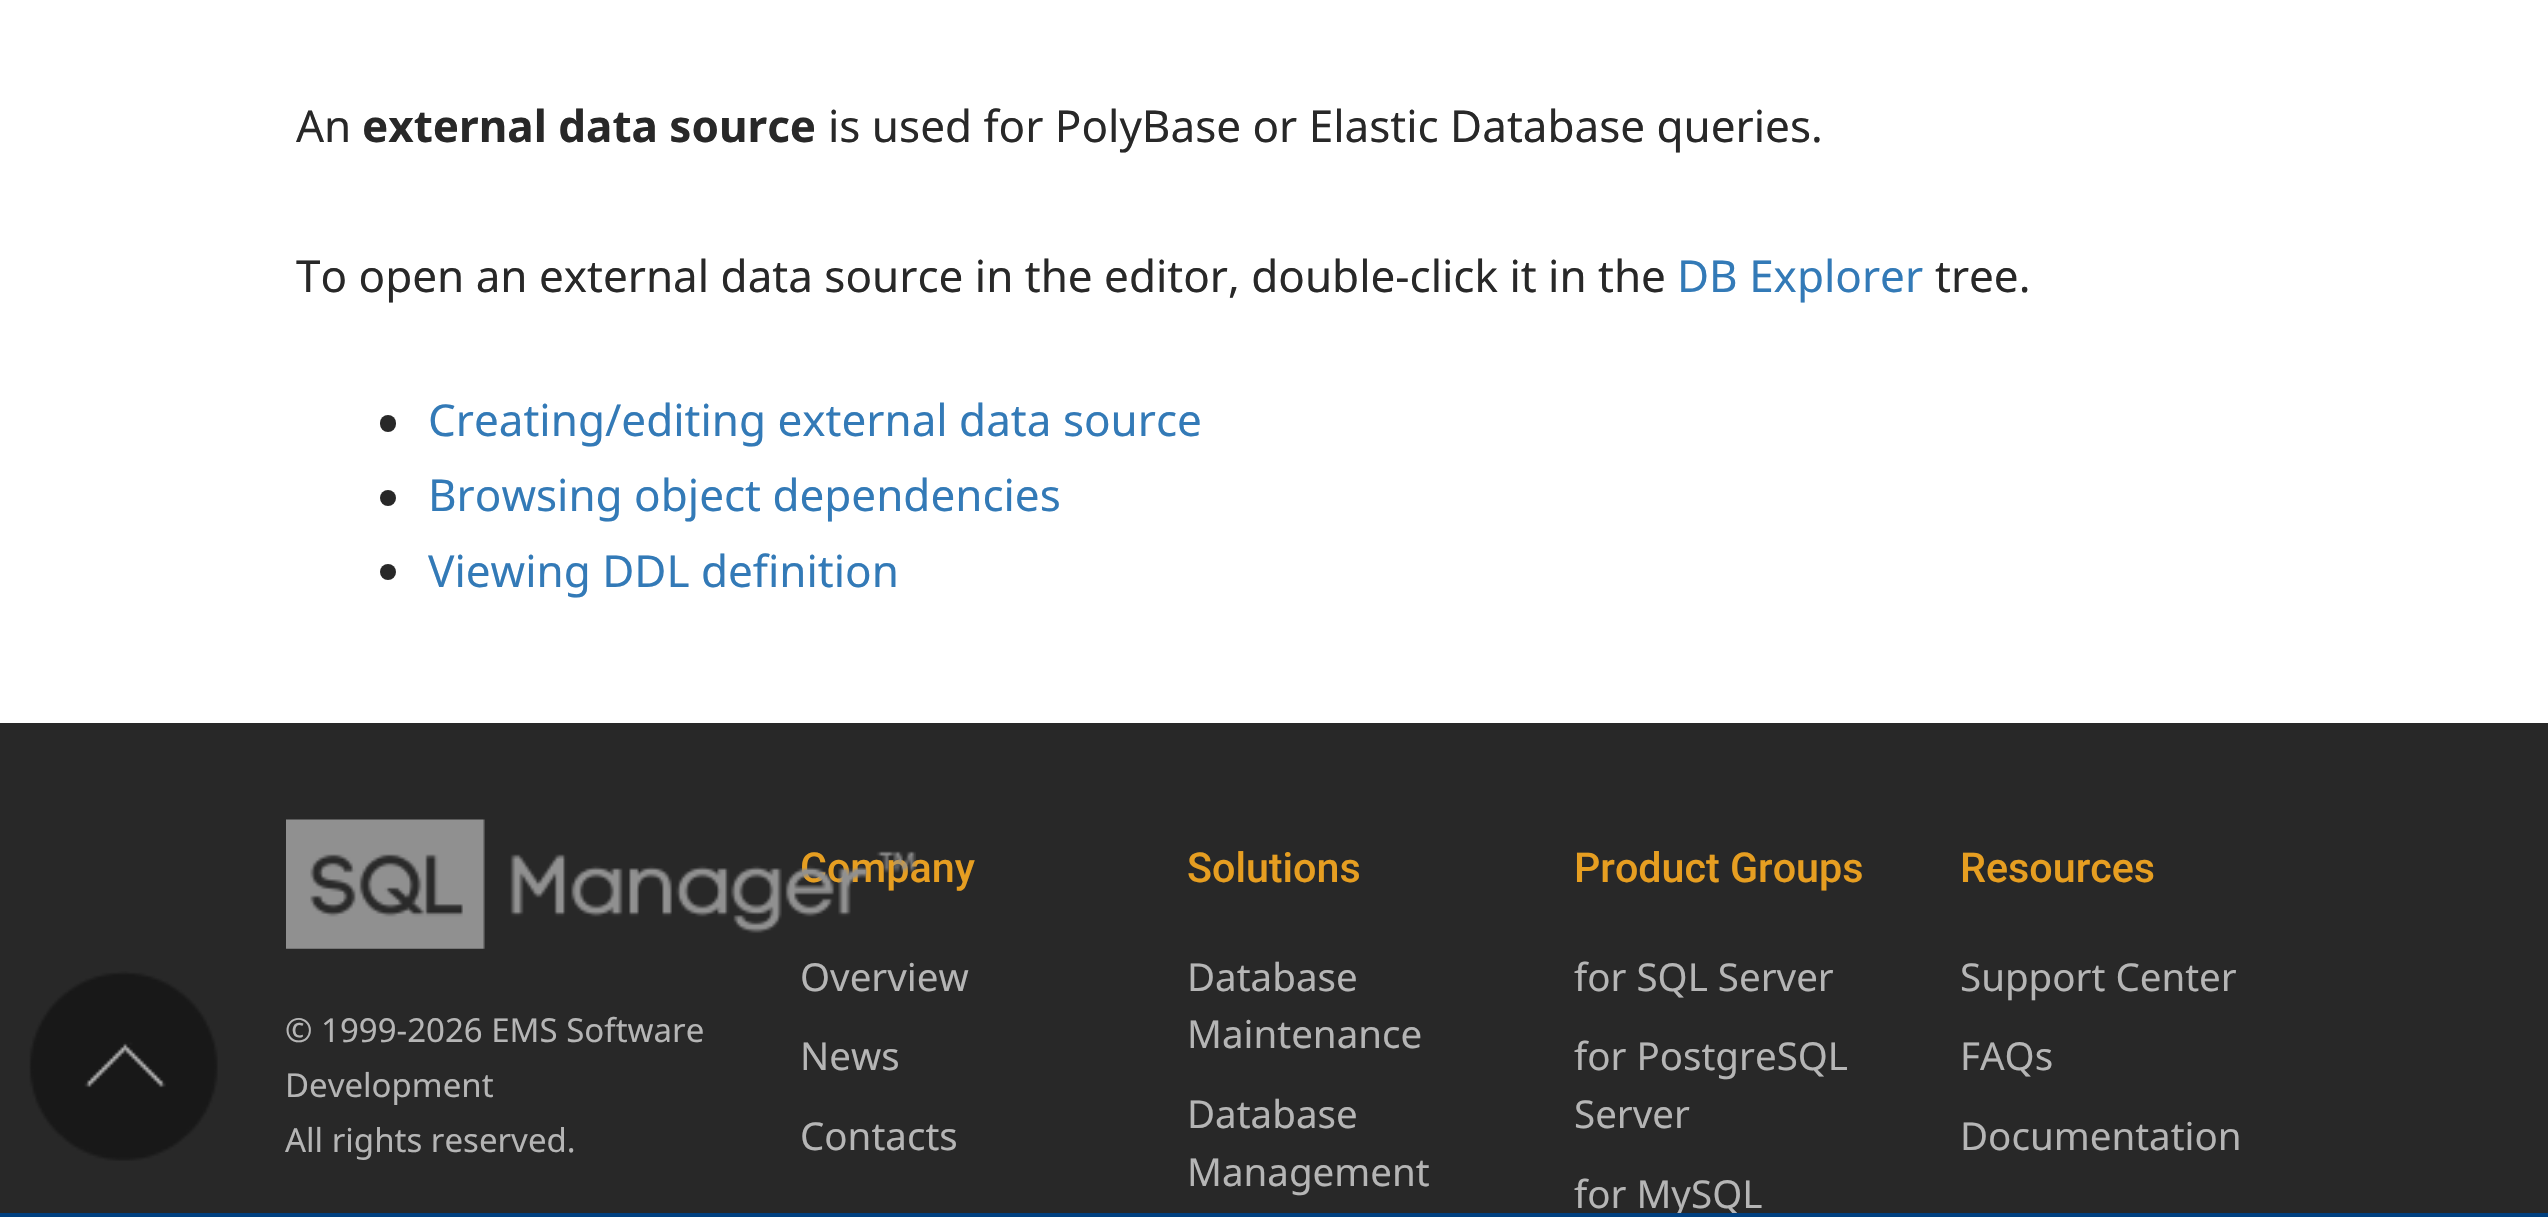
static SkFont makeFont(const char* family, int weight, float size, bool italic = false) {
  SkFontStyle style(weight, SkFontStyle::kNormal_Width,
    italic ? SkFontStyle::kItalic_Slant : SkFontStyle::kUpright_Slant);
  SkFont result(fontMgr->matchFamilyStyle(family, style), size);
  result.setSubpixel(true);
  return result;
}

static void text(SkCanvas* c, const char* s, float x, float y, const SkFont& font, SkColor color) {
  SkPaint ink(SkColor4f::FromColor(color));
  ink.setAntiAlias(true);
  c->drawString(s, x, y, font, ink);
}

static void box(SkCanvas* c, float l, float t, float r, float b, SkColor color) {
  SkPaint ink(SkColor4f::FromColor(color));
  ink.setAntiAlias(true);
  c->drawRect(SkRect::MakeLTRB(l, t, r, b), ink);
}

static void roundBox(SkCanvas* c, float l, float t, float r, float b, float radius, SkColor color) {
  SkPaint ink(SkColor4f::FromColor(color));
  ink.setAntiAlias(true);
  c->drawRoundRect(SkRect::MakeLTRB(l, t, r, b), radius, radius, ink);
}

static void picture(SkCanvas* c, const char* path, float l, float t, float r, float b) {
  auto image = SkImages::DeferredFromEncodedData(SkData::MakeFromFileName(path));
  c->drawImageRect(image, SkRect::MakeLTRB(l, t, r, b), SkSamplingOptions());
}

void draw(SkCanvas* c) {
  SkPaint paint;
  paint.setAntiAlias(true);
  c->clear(0xffffffff);
  box(c, 0, 723, 2548, 1213, 0xff282828);
  picture(c, "img_01.png", 29, 971, 218, 1161);
  SkFont face1 = makeFont("Noto Sans", 400, 44);
  text(c, "An", 296, 142, face1, 0xff282828);
  SkFont face2 = makeFont("Noto Sans", 700, 44);
  text(c, "external data source", 362, 142, face2, 0xff282828);
  text(c, "is used for PolyBase or Elastic Database queries.", 828, 142, face1, 0xff282828);
  text(c, "To open an external data source in the editor, double-click it in the", 296, 292, face1, 0xff282828);
  text(c, "DB Explorer", 1677, 292, face1, 0xff337ab7);
  text(c, "tree.", 1935, 292, face1, 0xff282828);
  roundBox(c, 380, 415, 396, 432, 8, 0xff282828);
  text(c, "Creating/editing external data source", 428, 436, face1, 0xff337ab7);
  paint.setColor(0xff282828);
  c->drawCircle(388, 498, 8, paint);
  text(c, "Browsing object dependencies", 428, 511, face1, 0xff337ab7);
  c->drawCircle(388, 572, 8, paint);
  text(c, "Viewing DDL definition", 428, 587, face1, 0xff337ab7);
  SkFont face3 = makeFont("Roboto", 500, 41.25f);
  text(c, "Company", 800, 882, face3, 0xffe69e21);
  picture(c, "img_02.png", 286, 819, 916, 949);
  SkFont face4 = makeFont("Noto Sans", 400, 33);
  text(c, "© 1999-2026 EMS Software", 285, 1042, face4, 0xffb5b5b5);
  text(c, "Development", 285, 1097, face4, 0xffb5b5b5);
  text(c, "All rights reserved.", 285, 1152, face4, 0xffb5b5b5);
  SkFont face5 = makeFont("Noto Sans", 400, 38.5f);
  text(c, "Overview", 800, 991, face5, 0xffb5b5b5);
  text(c, "News", 800, 1070, face5, 0xffb5b5b5);
  text(c, "Contacts", 800, 1150, face5, 0xffb5b5b5);
  text(c, "Solutions", 1187, 882, face3, 0xffe69e21);
  text(c, "Database", 1187, 991, face5, 0xffb5b5b5);
  text(c, "Maintenance", 1187, 1048, face5, 0xffb5b5b5);
  text(c, "Database", 1187, 1128, face5, 0xffb5b5b5);
  text(c, "Management", 1187, 1186, face5, 0xffb5b5b5);
  text(c, "Product Groups", 1574, 882, face3, 0xffe69e21);
  text(c, "for SQL Server", 1574, 991, face5, 0xffb5b5b5);
  text(c, "for PostgreSQL", 1574, 1070, face5, 0xffb5b5b5);
  text(c, "Server", 1574, 1128, face5, 0xffb5b5b5);
  text(c, "for MySQL", 1574, 1208, face5, 0xffb5b5b5);
  text(c, "Resources", 1960, 882, face3, 0xffe69e21);
  text(c, "Support Center", 1960, 991, face5, 0xffb5b5b5);
  text(c, "FAQs", 1960, 1070, face5, 0xffb5b5b5);
  text(c, "Documentation", 1960, 1150, face5, 0xffb5b5b5);
  box(c, 0, 1213, 2548, 1217, 0xff004080);
}
